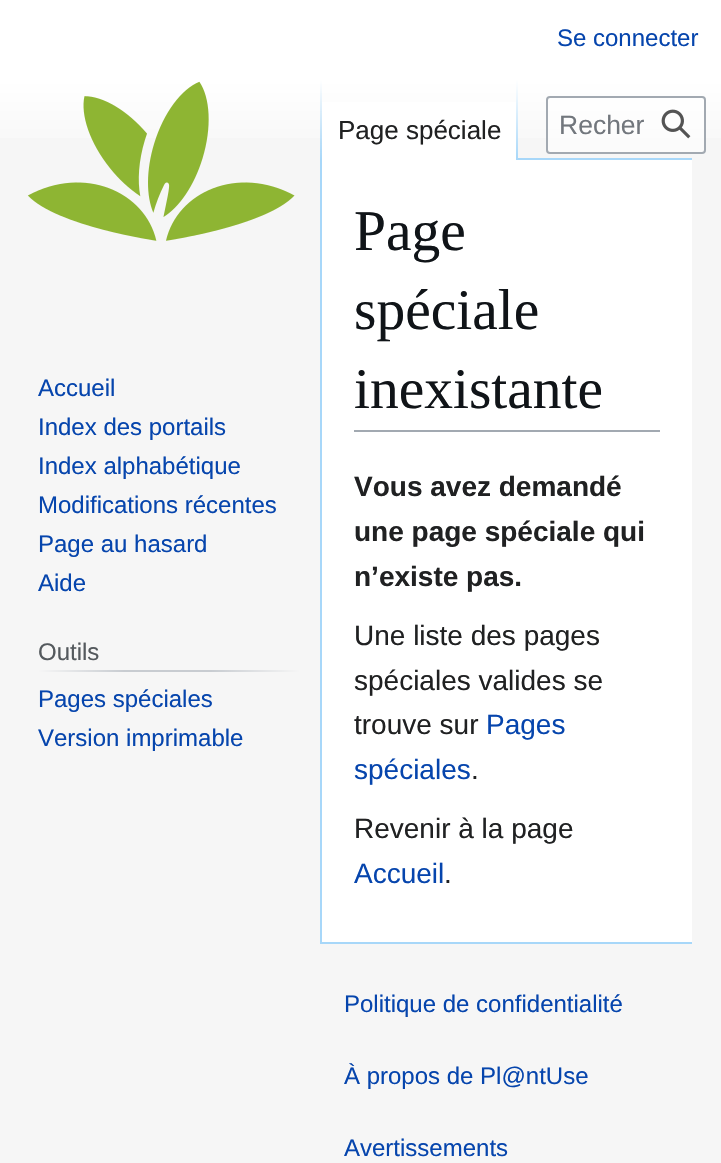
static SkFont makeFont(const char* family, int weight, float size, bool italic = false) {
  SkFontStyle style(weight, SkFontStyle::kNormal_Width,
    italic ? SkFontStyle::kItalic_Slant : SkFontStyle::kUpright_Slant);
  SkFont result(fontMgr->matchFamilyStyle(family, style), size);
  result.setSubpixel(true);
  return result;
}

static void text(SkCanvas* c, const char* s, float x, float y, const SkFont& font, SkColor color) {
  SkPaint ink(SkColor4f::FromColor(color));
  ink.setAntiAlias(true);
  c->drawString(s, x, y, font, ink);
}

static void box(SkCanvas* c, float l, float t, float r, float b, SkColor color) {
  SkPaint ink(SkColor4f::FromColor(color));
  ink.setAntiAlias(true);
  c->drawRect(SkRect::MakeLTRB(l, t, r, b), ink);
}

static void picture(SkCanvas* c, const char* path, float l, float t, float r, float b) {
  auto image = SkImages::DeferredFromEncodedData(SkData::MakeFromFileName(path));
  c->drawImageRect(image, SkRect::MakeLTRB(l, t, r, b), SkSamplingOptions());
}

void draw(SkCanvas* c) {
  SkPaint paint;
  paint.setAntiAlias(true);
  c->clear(0xfff6f6f6);
  {
    const SkColor colors[] = {0xffffffff, 0xfff6f6f6};
    const float stops[] = {0.5f, 1};
    const SkPoint ends[] = {{361, 0}, {361, 160}};
    paint.setShader(SkGradientShader::MakeLinear(ends, colors, stops, 2, SkTileMode::kClamp));
    paint.setAlpha(255);
  }
  c->drawRect(SkRect::MakeLTRB(0, 0, 721, 138), paint);
  SkFont face1 = makeFont("Liberation Sans", 400, 24);
  text(c, "Se connecter", 557, 46, face1, 0xff0645ad);
  box(c, 320, 942, 692, 944, 0xffa7d7f9);
  box(c, 320, 158, 322, 944, 0xffa7d7f9);
  {
    const SkColor colors[] = {0x00a7d7f9, 0xffa7d7f9};
    const float stops[] = {0, 1};
    const SkPoint ends[] = {{321, 80}, {321, 160}};
    paint.setShader(SkGradientShader::MakeLinear(ends, colors, stops, 2, SkTileMode::kClamp));
    paint.setAlpha(255);
  }
  c->drawRect(SkRect::MakeLTRB(320, 80, 322, 160), paint);
  box(c, 322, 102, 516, 160, 0xffffffff);
  {
    const SkColor colors[] = {0xffffffff, 0xffa7d7f9};
    const float stops[] = {0, 1};
    const SkPoint ends[] = {{517, 80}, {517, 160}};
    paint.setShader(SkGradientShader::MakeLinear(ends, colors, stops, 2, SkTileMode::kClamp));
    paint.setAlpha(255);
  }
  c->drawRect(SkRect::MakeLTRB(516, 80, 518, 160), paint);
  SkFont face2 = makeFont("Liberation Sans", 400, 26);
  text(c, "Page spéciale", 338, 139, face2, 0xff202122);
  paint.setShader(nullptr);
  paint.setColor(0x80ffffff);
  c->drawRoundRect(SkRect::MakeLTRB(547, 97, 705, 153), 3, 3, paint);
  paint.setStyle(SkPaint::kStroke_Style);
  paint.setStrokeWidth(2);
  paint.setColor(0xffa2a9b1);
  c->drawRoundRect(SkRect::MakeLTRB(547, 97, 705, 153), 3, 3, paint);
  SkFont face3 = makeFont("Liberation Sans", 400, 26.5f);
  text(c, "Recher", 559, 134, face3, 0xff72777d);
  picture(c, "img_01.png", 661, 109, 691, 139);
  picture(c, "img_02.png", 27, 81, 295, 241);
  text(c, "Accueil", 38, 396, face1, 0xff0645ad);
  text(c, "Index des portails", 38, 435, face1, 0xff0645ad);
  text(c, "Index alphabétique", 38, 474, face1, 0xff0645ad);
  text(c, "Modifications récentes", 38, 513, face1, 0xff0645ad);
  text(c, "Page au hasard", 38, 552, face1, 0xff0645ad);
  text(c, "Aide", 38, 591, face1, 0xff0645ad);
  paint.setStyle(SkPaint::kFill_Style);
  {
    const SkColor colors[] = {0xfff6f6f6, 0xffc8ccd1, 0xffc8ccd1, 0xfff6f6f6};
    const float stops[] = {0, 0.33f, 0.66f, 1};
    const SkPoint ends[] = {{38, 671}, {300, 671}};
    paint.setShader(SkGradientShader::MakeLinear(ends, colors, stops, 4, SkTileMode::kClamp));
    paint.setAlpha(255);
  }
  c->drawRect(SkRect::MakeLTRB(38, 670, 300, 672), paint);
  text(c, "Outils", 38, 660, face1, 0xff54595d);
  text(c, "Pages spéciales", 38, 707, face1, 0xff0645ad);
  text(c, "Version imprimable", 38, 746, face1, 0xff0645ad);
  box(c, 322, 160, 692, 942, 0xffffffff);
  box(c, 518, 158, 692, 160, 0xffa7d7f9);
  box(c, 354, 430, 660, 432, 0xffa2a9b1);
  SkFont face4 = makeFont("Liberation Serif", 400, 57.5f);
  text(c, "Page", 354, 250, face4, 0xff101418);
  text(c, "spéciale", 354, 329, face4, 0xff101418);
  text(c, "inexistante", 354, 408, face4, 0xff101418);
  SkFont face5 = makeFont("Liberation Sans", 700, 28);
  text(c, "Vous avez demandé", 354, 496, face5, 0xff202122);
  text(c, "une page spéciale qui", 354, 541, face5, 0xff202122);
  text(c, "n’existe pas.", 354, 586, face5, 0xff202122);
  SkFont face6 = makeFont("Liberation Sans", 400, 28);
  text(c, "Une liste des pages", 354, 645, face6, 0xff202122);
  text(c, "spéciales valides se", 354, 690, face6, 0xff202122);
  text(c, "trouve sur", 354, 734, face6, 0xff202122);
  text(c, "Pages", 486, 734, face6, 0xff0645ad);
  text(c, "spéciales", 354, 779, face6, 0xff0645ad);
  text(c, ".", 471, 779, face6, 0xff202122);
  text(c, "Revenir à la page", 354, 838, face6, 0xff202122);
  text(c, "Accueil", 354, 883, face6, 0xff0645ad);
  text(c, ".", 444, 883, face6, 0xff202122);
  text(c, "Politique de confidentialité", 344, 1012, face1, 0xff0645ad);
  text(c, "À propos de Pl@ntUse", 344, 1084, face1, 0xff0645ad);
  text(c, "Avertissements", 344, 1156, face1, 0xff0645ad);
}
